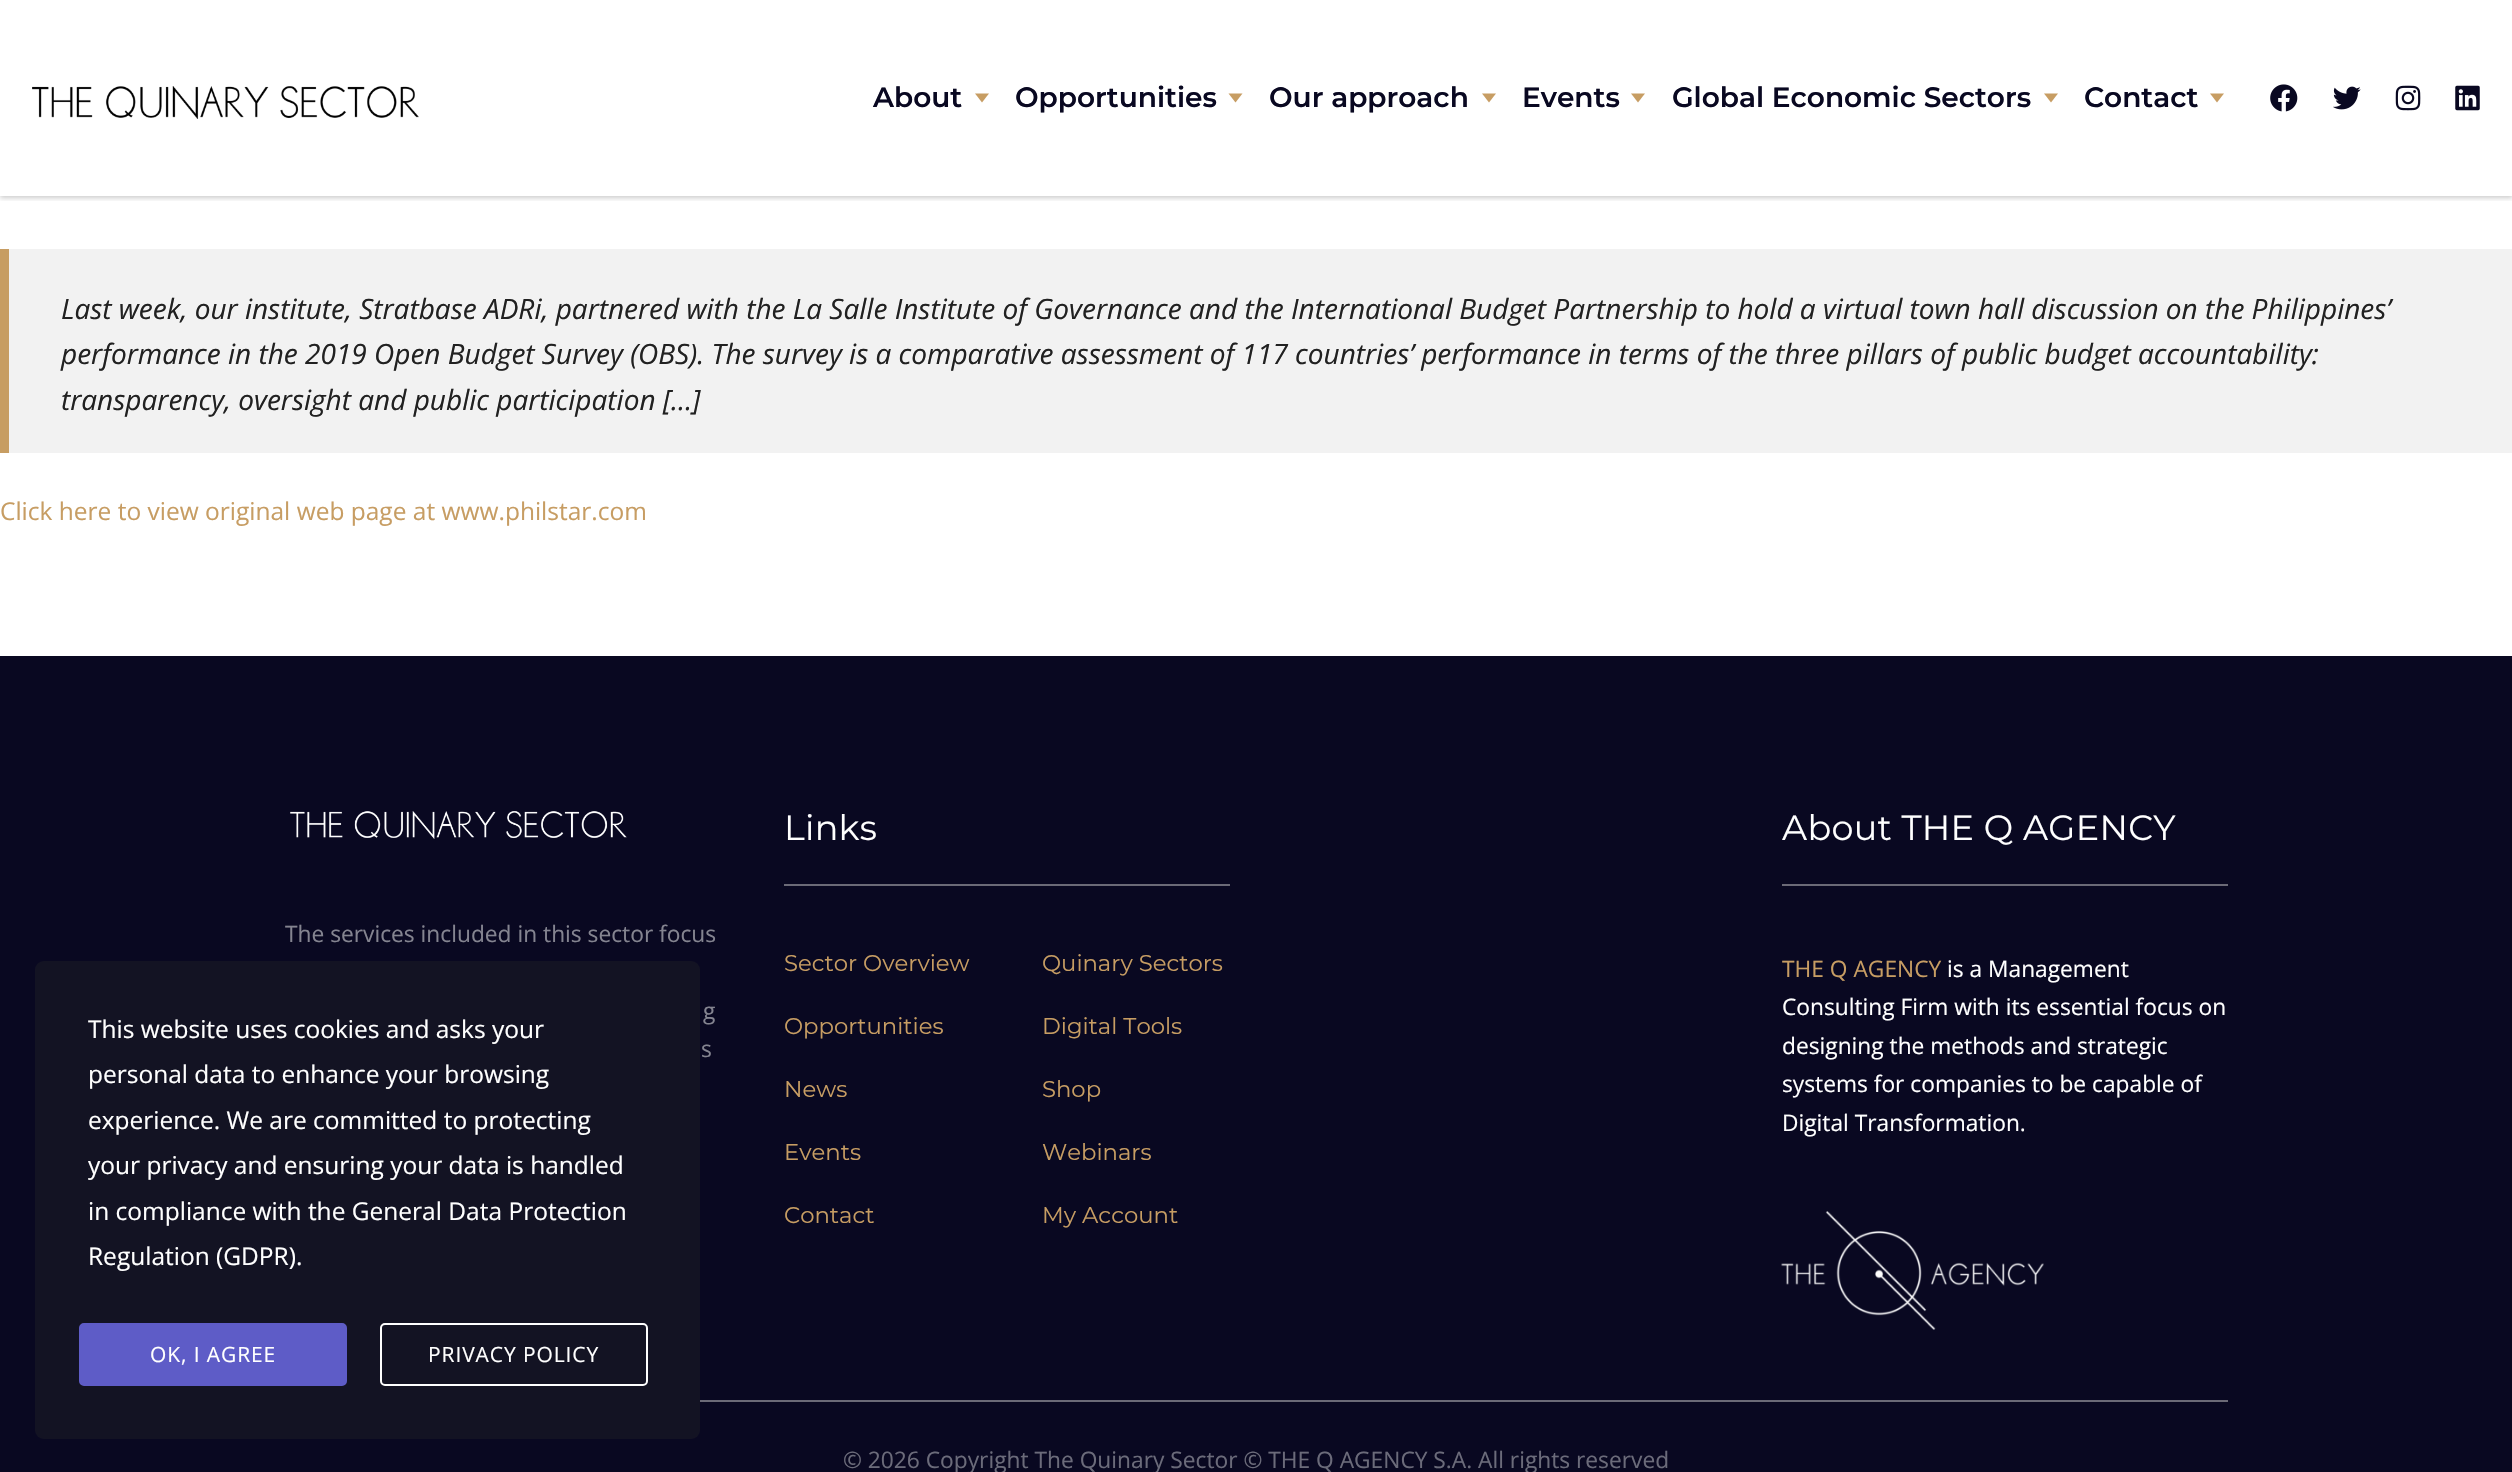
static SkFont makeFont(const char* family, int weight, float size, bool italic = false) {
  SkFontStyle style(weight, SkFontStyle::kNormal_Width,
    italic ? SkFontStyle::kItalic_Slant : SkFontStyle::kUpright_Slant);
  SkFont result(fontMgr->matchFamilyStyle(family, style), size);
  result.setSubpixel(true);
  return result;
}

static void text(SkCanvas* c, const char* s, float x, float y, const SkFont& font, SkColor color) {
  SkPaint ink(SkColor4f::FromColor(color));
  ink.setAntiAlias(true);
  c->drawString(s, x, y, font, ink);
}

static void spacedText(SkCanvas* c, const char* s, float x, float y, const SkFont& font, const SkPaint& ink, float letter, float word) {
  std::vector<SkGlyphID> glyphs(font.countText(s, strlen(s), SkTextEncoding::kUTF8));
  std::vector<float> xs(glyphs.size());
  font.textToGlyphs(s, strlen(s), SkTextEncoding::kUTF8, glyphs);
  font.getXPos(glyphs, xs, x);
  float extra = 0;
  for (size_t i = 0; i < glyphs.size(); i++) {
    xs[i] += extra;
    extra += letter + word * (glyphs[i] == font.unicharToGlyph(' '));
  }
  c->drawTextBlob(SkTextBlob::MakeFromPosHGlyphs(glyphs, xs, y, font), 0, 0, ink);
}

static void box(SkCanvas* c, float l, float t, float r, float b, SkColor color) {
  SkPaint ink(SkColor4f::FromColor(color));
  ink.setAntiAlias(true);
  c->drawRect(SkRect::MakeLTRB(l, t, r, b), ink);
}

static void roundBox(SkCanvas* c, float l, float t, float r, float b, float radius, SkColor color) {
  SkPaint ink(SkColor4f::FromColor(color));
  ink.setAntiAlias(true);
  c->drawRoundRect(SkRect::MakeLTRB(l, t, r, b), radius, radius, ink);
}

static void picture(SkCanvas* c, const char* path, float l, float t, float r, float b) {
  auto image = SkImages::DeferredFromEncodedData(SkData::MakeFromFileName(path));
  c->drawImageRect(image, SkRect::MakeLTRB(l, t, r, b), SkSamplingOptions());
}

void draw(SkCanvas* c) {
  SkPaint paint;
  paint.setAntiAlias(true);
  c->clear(0xffffffff);
  c->save();
  c->clipRect(SkRect::MakeLTRB(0, 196, 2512, 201));
  paint.setColor(0x33000000);
  paint.setMaskFilter(SkMaskFilter::MakeBlur(kNormal_SkBlurStyle, 2.5f));
  c->drawRect(SkRect::MakeLTRB(0, 2, 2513, 198), paint);
  paint.setMaskFilter(nullptr);
  c->restore();
  picture(c, "img_01.png", 32, 86, 419, 119);
  SkFont face1 = makeFont("Montserrat", 600, 28);
  text(c, "About", 873, 107, face1, 0xff090821);
  paint.setColor(0xffc79d63);
  c->drawPath(SkPathBuilder().moveTo(975, 93.5f).lineTo(989, 93.5f).lineTo(982, 102.5f).close().detach(), paint);
  text(c, "Opportunities", 1015, 107, face1, 0xff090821);
  c->drawPath(SkPathBuilder().moveTo(1228.5f, 93.5f).lineTo(1242.5f, 93.5f).lineTo(1235.5f, 102.5f).close().detach(), paint);
  text(c, "Our approach", 1269, 107, face1, 0xff090821);
  c->drawPath(SkPathBuilder().moveTo(1482, 93.5f).lineTo(1496, 93.5f).lineTo(1489, 102.5f).close().detach(), paint);
  text(c, "Events", 1522, 107, face1, 0xff090821);
  c->drawPath(SkPathBuilder().moveTo(1631, 93.5f).lineTo(1645, 93.5f).lineTo(1638, 102.5f).close().detach(), paint);
  text(c, "Global Economic Sectors", 1672, 107, face1, 0xff090821);
  c->drawPath(SkPathBuilder().moveTo(2044, 93.5f).lineTo(2058, 93.5f).lineTo(2051, 102.5f).close().detach(), paint);
  text(c, "Contact", 2084, 107, face1, 0xff090821);
  c->drawPath(SkPathBuilder().moveTo(2210, 93.5f).lineTo(2224, 93.5f).lineTo(2217, 102.5f).close().detach(), paint);
  picture(c, "img_02.png", 2270, 84, 2298, 112);
  picture(c, "img_03.png", 2333, 86, 2361, 110);
  picture(c, "img_04.png", 2395, 85, 2421, 111);
  picture(c, "img_05.png", 2455, 85, 2480, 111);
  box(c, 9, 249, 2512, 453, 0xfff2f2f2);
  box(c, 0, 249, 9, 453, 0xffc79d62);
  SkFont face2 = makeFont("Open Sans", 400, 28, true);
  text(c, "Last week, our institute, Stratbase ADRi, partnered with the La Salle Institute of Governance and the International Budget Partnership to hold a virtual town hall discussion on the Philippines’", 61, 319, face2, 0xff212121);
  text(c, "performance in the 2019 Open Budget Survey (OBS). The survey is a comparative assessment of 117 countries’ performance in terms of the three pillars of public budget accountability:", 61, 364, face2, 0xff212121);
  text(c, "transparency, oversight and public participation […]", 61, 410, face2, 0xff212121);
  SkFont face3 = makeFont("Open Sans", 400, 24.5f);
  text(c, "Click here to view original web page at www.philstar.com", 0, 520, face3, 0xffc79d63);
  box(c, 0, 656, 2512, 1472, 0xff090821);
  picture(c, "img_06.png", 290, 811, 627, 839);
  SkFont face4 = makeFont("Open Sans", 400, 22.75f);
  text(c, "The services included in this sector focus", 285, 942, face4, 0xff848490);
  text(c, "g", 703, 1019, face4, 0xff848490);
  text(c, "s", 701, 1057, face4, 0xff848490);
  box(c, 784, 884, 1230, 886, 0xff6b6a77);
  SkFont face5 = makeFont("Montserrat", 400, 35);
  paint.setColor(0xffffffff);
  spacedText(c, "Links", 784, 840, face5, paint, 0.3f, 0);
  SkFont face6 = makeFont("Montserrat", 400, 22.75f);
  text(c, "Sector Overview", 784, 971, face6, 0xffc79d63);
  text(c, "Quinary Sectors", 1042, 971, face6, 0xffc79d63);
  text(c, "Opportunities", 784, 1034, face6, 0xffc79d63);
  text(c, "Digital Tools", 1042, 1034, face6, 0xffc79d63);
  text(c, "News", 784, 1097, face6, 0xffc79d63);
  text(c, "Shop", 1042, 1097, face6, 0xffc79d63);
  text(c, "Events", 784, 1160, face6, 0xffc79d63);
  text(c, "Webinars", 1042, 1160, face6, 0xffc79d63);
  text(c, "Contact", 784, 1223, face6, 0xffc79d63);
  text(c, "My Account", 1042, 1223, face6, 0xffc79d63);
  box(c, 1782, 884, 2228, 886, 0xff6b6a77);
  spacedText(c, "About THE Q AGENCY", 1782, 840, face5, paint, 0.3f, 0);
  text(c, "THE Q AGENCY", 1782, 977, face4, 0xffc79d63);
  text(c, "is a Management", 1947, 977, face4, 0xffffffff);
  text(c, "Consulting Firm with its essential focus on", 1782, 1015, face4, 0xffffffff);
  text(c, "designing the methods and strategic", 1782, 1054, face4, 0xffffffff);
  text(c, "systems for companies to be capable of", 1782, 1092, face4, 0xffffffff);
  text(c, "Digital Transformation.", 1782, 1131, face4, 0xffffffff);
  picture(c, "img_07.png", 1781, 1211, 2044, 1330);
  box(c, 700, 1400, 2228, 1402, 0xff6b6a77);
  text(c, "© 2026 Copyright The Quinary Sector © THE Q AGENCY S.A. All rights reserved", 843, 1468, face4, 0xff6b6b7a);
  roundBox(c, 35, 961, 700, 1439, 9, 0xff131323);
  text(c, "This website uses cookies and asks your", 88, 1038, face3, 0xffffffff);
  text(c, "personal data to enhance your browsing", 88, 1083, face3, 0xffffffff);
  text(c, "experience. We are committed to protecting", 88, 1129, face3, 0xffffffff);
  text(c, "your privacy and ensuring your data is handled", 88, 1174, face3, 0xffffffff);
  text(c, "in compliance with the General Data Protection", 88, 1220, face3, 0xffffffff);
  text(c, "Regulation (GDPR).", 88, 1265, face3, 0xffffffff);
  paint.setColor(0xff5e5cc7);
  c->drawRoundRect(SkRect::MakeLTRB(80, 1324, 346, 1385), 4, 4, paint);
  paint.setStyle(SkPaint::kStroke_Style);
  paint.setStrokeWidth(2);
  c->drawRoundRect(SkRect::MakeLTRB(80, 1324, 346, 1385), 4, 4, paint);
  SkFont face7 = makeFont("Open Sans", 400, 21);
  paint.setStyle(SkPaint::kFill_Style);
  paint.setColor(0xffffffff);
  spacedText(c, "OK, I AGREE", 150, 1362, face7, paint, 0.9f, 0);
  paint.setStyle(SkPaint::kStroke_Style);
  c->drawRoundRect(SkRect::MakeLTRB(381, 1324, 647, 1385), 4, 4, paint);
  paint.setStyle(SkPaint::kFill_Style);
  spacedText(c, "PRIVACY POLICY", 428, 1362, face7, paint, 0.9f, 0);
}
